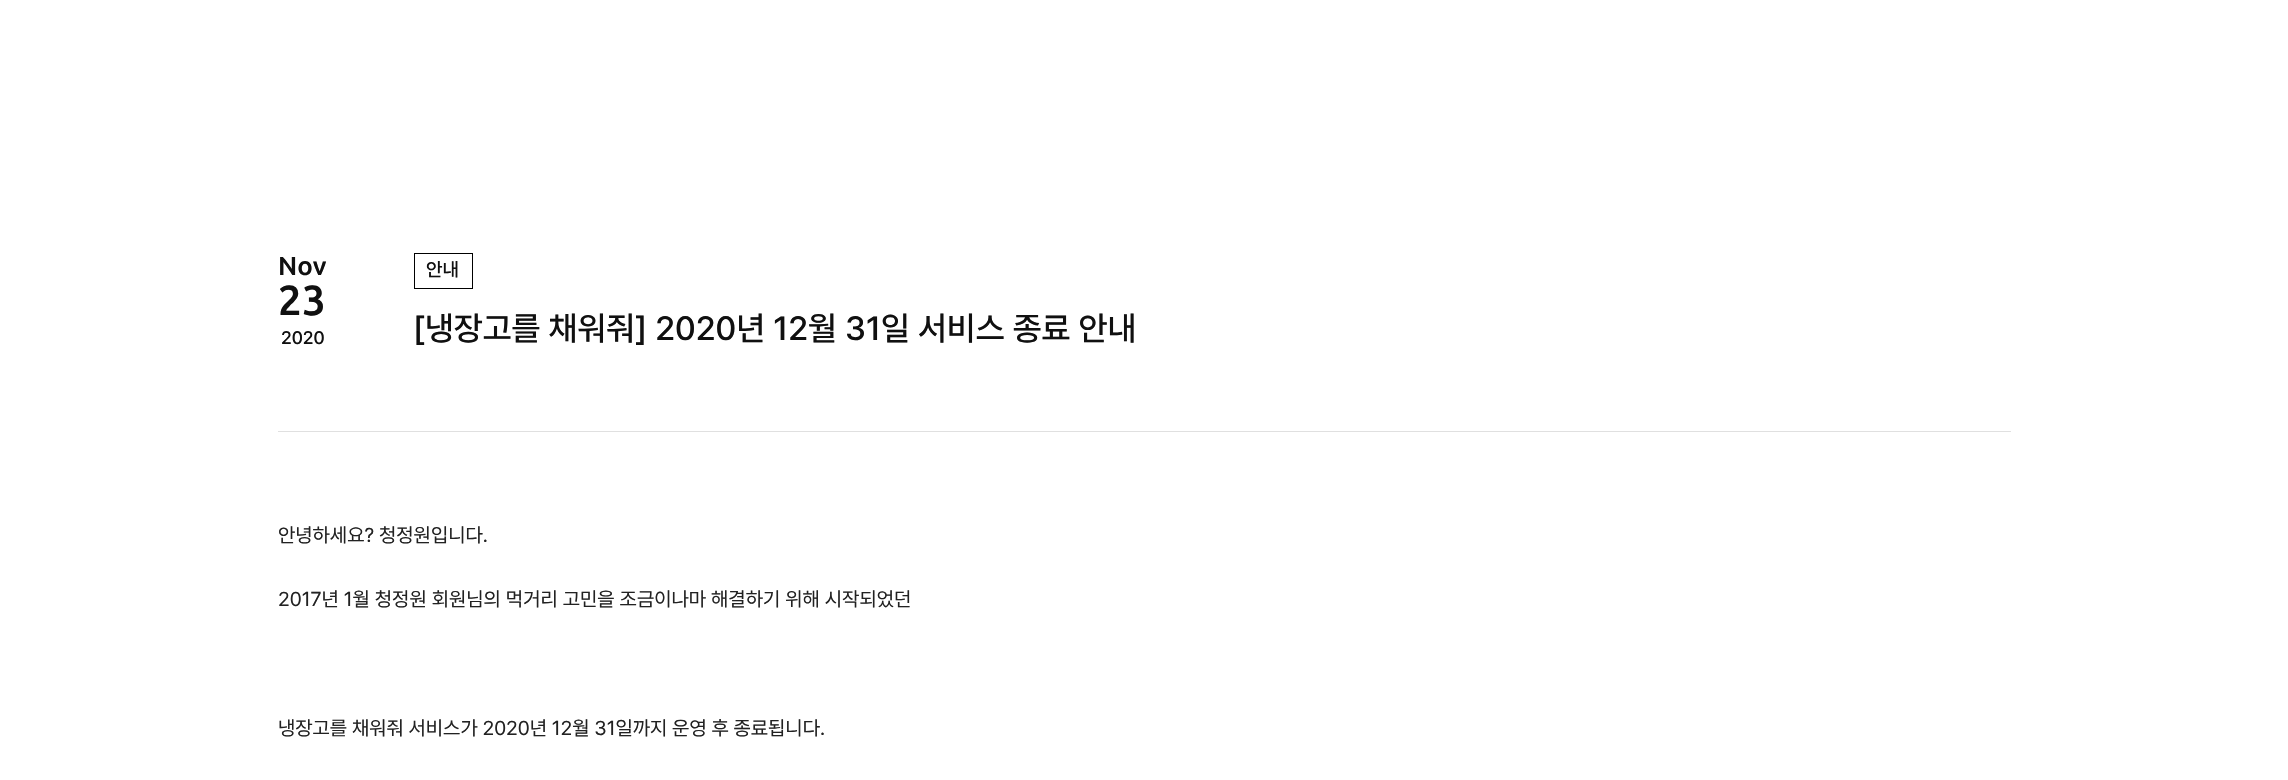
static SkFont makeFont(const char* family, int weight, float size, bool italic = false) {
  SkFontStyle style(weight, SkFontStyle::kNormal_Width,
    italic ? SkFontStyle::kItalic_Slant : SkFontStyle::kUpright_Slant);
  SkFont result(fontMgr->matchFamilyStyle(family, style), size);
  result.setSubpixel(true);
  return result;
}

static void text(SkCanvas* c, const char* s, float x, float y, const SkFont& font, SkColor color) {
  SkPaint ink(SkColor4f::FromColor(color));
  ink.setAntiAlias(true);
  c->drawString(s, x, y, font, ink);
}

static void spacedText(SkCanvas* c, const char* s, float x, float y, const SkFont& font, const SkPaint& ink, float letter, float word) {
  std::vector<SkGlyphID> glyphs(font.countText(s, strlen(s), SkTextEncoding::kUTF8));
  std::vector<float> xs(glyphs.size());
  font.textToGlyphs(s, strlen(s), SkTextEncoding::kUTF8, glyphs);
  font.getXPos(glyphs, xs, x);
  float extra = 0;
  for (size_t i = 0; i < glyphs.size(); i++) {
    xs[i] += extra;
    extra += letter + word * (glyphs[i] == font.unicharToGlyph(' '));
  }
  c->drawTextBlob(SkTextBlob::MakeFromPosHGlyphs(glyphs, xs, y, font), 0, 0, ink);
}

static void box(SkCanvas* c, float l, float t, float r, float b, SkColor color) {
  SkPaint ink(SkColor4f::FromColor(color));
  ink.setAntiAlias(true);
  c->drawRect(SkRect::MakeLTRB(l, t, r, b), ink);
}

void draw(SkCanvas* c) {
  SkPaint paint;
  paint.setAntiAlias(true);
  c->clear(0xffffffff);
  box(c, 278, 431, 2011, 432, 0xffe0e0e0);
  SkFont face1 = makeFont("Ubuntu", 500, 26);
  text(c, "Nov", 278, 275, face1, 0xff101010);
  SkFont face2 = makeFont("Ubuntu", 500, 42);
  text(c, "23", 278, 315, face2, 0xff101010);
  SkFont face3 = makeFont("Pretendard", 500, 18);
  text(c, "2020", 281, 344, face3, 0xff101010);
  paint.setStyle(SkPaint::kStroke_Style);
  paint.setStrokeWidth(1);
  paint.setColor(0xff000000);
  c->drawRect(SkRect::MakeLTRB(414.5f, 253.5f, 472.5f, 288.5f), paint);
  SkFont face4 = makeFont("Pretendard", 500, 19);
  text(c, "안내", 426, 276, face4, 0xff101010);
  SkFont face5 = makeFont("Pretendard", 500, 33.4f);
  text(c, "[냉장고를 채워줘] 2020년 12월 31일 서비스 종료 안내", 413, 340, face5, 0xff101010);
  SkFont face6 = makeFont("Pretendard", 400, 20);
  text(c, "안녕하세요? 청정원입니다.", 278, 542, face6, 0xff222222);
  text(c, "2017년 1월 청정원 회원님의 먹거리 고민을 조금이나마 해결하기 위해 시작되었던", 278, 606, face6, 0xff222222);
  paint.setStyle(SkPaint::kFill_Style);
  paint.setColor(0xff222222);
  spacedText(c, "냉장고를 채워줘 서비스가 2020년 12월 31일까지 운영 후 종료됩니다.", 278, 735, face6, paint, 0, -0.25f);
}
